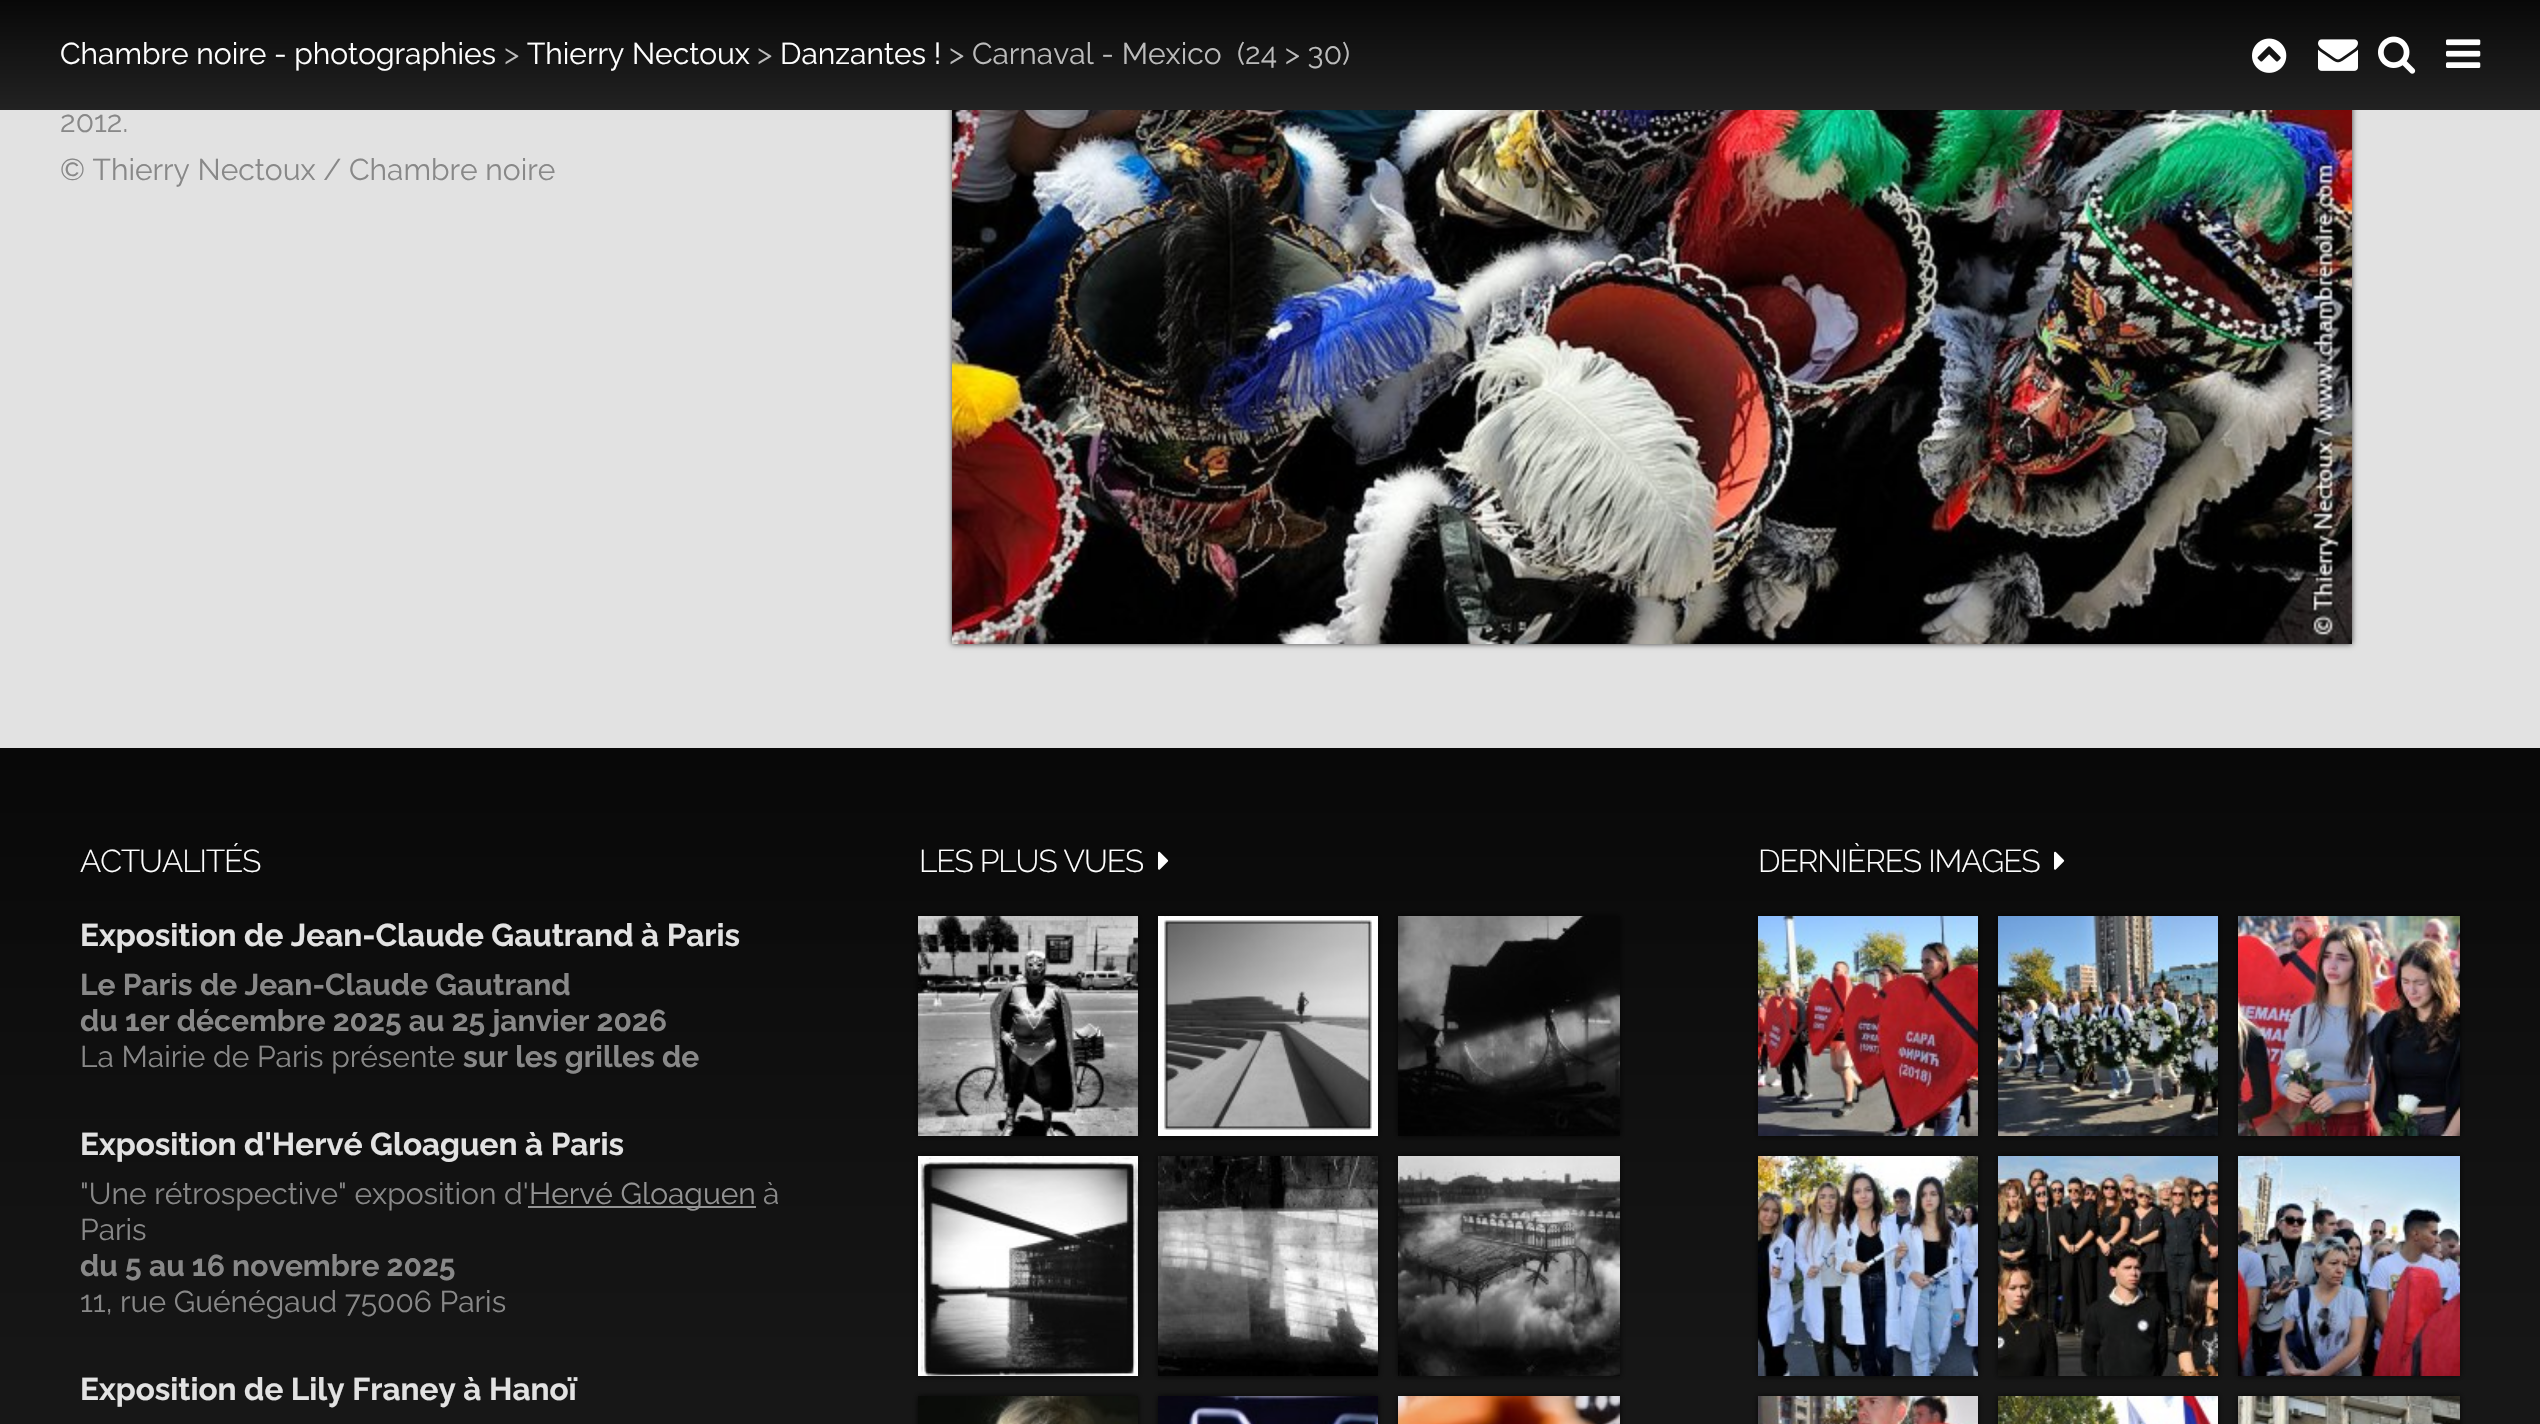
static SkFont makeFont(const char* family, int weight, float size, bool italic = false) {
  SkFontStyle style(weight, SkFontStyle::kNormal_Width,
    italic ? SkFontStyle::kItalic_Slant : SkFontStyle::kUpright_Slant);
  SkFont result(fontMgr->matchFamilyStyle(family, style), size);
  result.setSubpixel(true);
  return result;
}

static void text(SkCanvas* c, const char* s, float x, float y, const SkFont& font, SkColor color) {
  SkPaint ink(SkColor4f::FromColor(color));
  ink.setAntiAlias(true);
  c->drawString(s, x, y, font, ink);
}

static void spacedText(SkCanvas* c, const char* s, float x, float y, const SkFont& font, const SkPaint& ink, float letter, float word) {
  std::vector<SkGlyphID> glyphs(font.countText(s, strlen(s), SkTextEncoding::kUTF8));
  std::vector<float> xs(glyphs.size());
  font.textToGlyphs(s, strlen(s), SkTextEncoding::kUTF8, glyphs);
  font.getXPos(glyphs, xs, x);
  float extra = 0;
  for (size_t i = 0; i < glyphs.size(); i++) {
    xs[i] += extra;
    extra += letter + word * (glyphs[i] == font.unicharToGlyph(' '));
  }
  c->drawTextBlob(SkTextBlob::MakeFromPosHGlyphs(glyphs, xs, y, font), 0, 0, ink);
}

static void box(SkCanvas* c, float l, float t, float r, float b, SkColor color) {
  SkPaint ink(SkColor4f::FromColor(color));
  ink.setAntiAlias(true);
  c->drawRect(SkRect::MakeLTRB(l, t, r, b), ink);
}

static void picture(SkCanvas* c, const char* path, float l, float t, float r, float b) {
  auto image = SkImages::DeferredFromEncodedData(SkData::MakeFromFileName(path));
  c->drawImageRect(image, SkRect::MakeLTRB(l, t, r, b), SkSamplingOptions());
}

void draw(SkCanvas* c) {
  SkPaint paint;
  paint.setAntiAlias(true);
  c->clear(0xffe2e2e2);
  paint.setColor(0xbf000000);
  paint.setMaskFilter(SkMaskFilter::MakeBlur(kNormal_SkBlurStyle, 3));
  c->drawRect(SkRect::MakeLTRB(952, -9, 2352, 644), paint);
  paint.setMaskFilter(nullptr);
  {
    const SkColor colors[] = {0xff080808, 0xff222222};
    const float stops[] = {0, 1};
    const SkPoint ends[] = {{1270, 0}, {1270, 110}};
    paint.setShader(SkGradientShader::MakeLinear(ends, colors, stops, 2, SkTileMode::kClamp));
    paint.setAlpha(255);
  }
  c->drawRect(SkRect::MakeLTRB(0, 0, 2540, 110), paint);
  SkFont face1 = makeFont("Raleway", 400, 30);
  text(c, "Chambre noire - photographies", 60, 64, face1, 0xffffffff);
  text(c, ">", 504, 64, face1, 0xffbbbbbb);
  text(c, "Thierry Nectoux", 527, 64, face1, 0xffffffff);
  text(c, ">", 757, 64, face1, 0xffbbbbbb);
  text(c, "Danzantes !", 780, 64, face1, 0xffffffff);
  text(c, "> Carnaval - Mexico", 949, 64, face1, 0xffbbbbbb);
  text(c, "(24 > 30)", 1237, 64, face1, 0xffbbbbbb);
  picture(c, "img_01.png", 2252, 38, 2287, 73);
  picture(c, "img_02.png", 2318, 39, 2358, 71);
  picture(c, "img_03.png", 2378, 36, 2416, 74);
  picture(c, "img_04.png", 2446, 39, 2481, 68);
  text(c, "2012.", 60, 132, face1, 0xff888888);
  text(c, "© Thierry Nectoux / Chambre noire", 60, 180, face1, 0xff888888);
  picture(c, "img_05.png", 952, 110, 2352, 644);
  {
    const SkColor colors[] = {0xff080808, 0xff222222};
    const float stops[] = {0, 1};
    const SkPoint ends[] = {{1270, 748}, {1270, 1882}};
    paint.setShader(SkGradientShader::MakeLinear(ends, colors, stops, 2, SkTileMode::kClamp));
    paint.setAlpha(255);
  }
  c->drawRect(SkRect::MakeLTRB(0, 748, 2540, 1424), paint);
  SkFont face2 = makeFont("Raleway", 300, 31.5f);
  paint.setShader(nullptr);
  paint.setColor(0xffffffff);
  spacedText(c, "ACTUALITÉS", 80, 872, face2, paint, -1, 0);
  SkFont face3 = makeFont("Raleway", 700, 31.5f);
  text(c, "Exposition de Jean-Claude Gautrand à Paris", 80, 946, face3, 0xffe2e2e2);
  SkFont face4 = makeFont("Raleway", 700, 30);
  text(c, "Le Paris de Jean-Claude Gautrand", 80, 995, face4, 0xff888888);
  text(c, "du 1er décembre 2025 au 25 janvier 2026", 80, 1031, face4, 0xff888888);
  text(c, "La Mairie de Paris présente", 80, 1067, face1, 0xff888888);
  text(c, "sur les grilles de", 463, 1067, face4, 0xff888888);
  text(c, "Exposition d'Hervé Gloaguen à Paris", 80, 1155, face3, 0xffe2e2e2);
  text(c, "\"Une rétrospective\" exposition d'", 80, 1204, face1, 0xff888888);
  box(c, 528, 1206, 756, 1208, 0xff939393);
  text(c, "Hervé Gloaguen", 529, 1204, face1, 0xff939393);
  text(c, "à", 763, 1204, face1, 0xff888888);
  text(c, "Paris", 80, 1240, face1, 0xff888888);
  text(c, "du 5 au 16 novembre 2025", 80, 1276, face4, 0xff888888);
  text(c, "11, rue Guénégaud 75006 Paris", 80, 1312, face1, 0xff888888);
  text(c, "Exposition de Lily Franey à Hanoï", 80, 1400, face3, 0xffe2e2e2);
  spacedText(c, "LES PLUS VUES", 919, 872, face2, paint, -1, 0);
  picture(c, "img_06.png", 1158, 851, 1169, 870);
  paint.setColor(0xbf000000);
  paint.setMaskFilter(SkMaskFilter::MakeBlur(kNormal_SkBlurStyle, 3));
  c->drawRect(SkRect::MakeLTRB(918, 916, 1138, 1136), paint);
  paint.setMaskFilter(nullptr);
  picture(c, "img_07.png", 918, 916, 1138, 1136);
  paint.setMaskFilter(SkMaskFilter::MakeBlur(kNormal_SkBlurStyle, 3));
  c->drawRect(SkRect::MakeLTRB(1158, 916, 1378, 1136), paint);
  paint.setMaskFilter(nullptr);
  picture(c, "img_08.png", 1158, 916, 1378, 1136);
  paint.setMaskFilter(SkMaskFilter::MakeBlur(kNormal_SkBlurStyle, 3));
  c->drawRect(SkRect::MakeLTRB(1398, 916, 1620, 1136), paint);
  paint.setMaskFilter(nullptr);
  picture(c, "img_09.png", 1398, 916, 1620, 1136);
  paint.setMaskFilter(SkMaskFilter::MakeBlur(kNormal_SkBlurStyle, 3));
  c->drawRect(SkRect::MakeLTRB(918, 1156, 1138, 1376), paint);
  paint.setMaskFilter(nullptr);
  picture(c, "img_10.png", 918, 1156, 1138, 1376);
  paint.setMaskFilter(SkMaskFilter::MakeBlur(kNormal_SkBlurStyle, 3));
  c->drawRect(SkRect::MakeLTRB(1158, 1156, 1378, 1376), paint);
  paint.setMaskFilter(nullptr);
  picture(c, "img_11.png", 1158, 1156, 1378, 1376);
  paint.setMaskFilter(SkMaskFilter::MakeBlur(kNormal_SkBlurStyle, 3));
  c->drawRect(SkRect::MakeLTRB(1398, 1156, 1620, 1376), paint);
  paint.setMaskFilter(nullptr);
  picture(c, "img_12.png", 1398, 1156, 1620, 1376);
  paint.setMaskFilter(SkMaskFilter::MakeBlur(kNormal_SkBlurStyle, 3));
  c->drawRect(SkRect::MakeLTRB(918, 1396, 1138, 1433), paint);
  paint.setMaskFilter(nullptr);
  picture(c, "img_13.png", 918, 1396, 1138, 1424);
  paint.setMaskFilter(SkMaskFilter::MakeBlur(kNormal_SkBlurStyle, 3));
  c->drawRect(SkRect::MakeLTRB(1158, 1396, 1378, 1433), paint);
  paint.setMaskFilter(nullptr);
  picture(c, "img_14.png", 1158, 1396, 1378, 1424);
  paint.setMaskFilter(SkMaskFilter::MakeBlur(kNormal_SkBlurStyle, 3));
  c->drawRect(SkRect::MakeLTRB(1398, 1396, 1620, 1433), paint);
  paint.setMaskFilter(nullptr);
  picture(c, "img_15.png", 1398, 1396, 1620, 1424);
  paint.setColor(0xffffffff);
  spacedText(c, "DERNIÈRES IMAGES", 1758, 872, face2, paint, -1, 0);
  picture(c, "img_06.png", 2054, 851, 2065, 870);
  paint.setColor(0xbf000000);
  paint.setMaskFilter(SkMaskFilter::MakeBlur(kNormal_SkBlurStyle, 3));
  c->drawRect(SkRect::MakeLTRB(1758, 916, 1978, 1136), paint);
  paint.setMaskFilter(nullptr);
  picture(c, "img_16.png", 1758, 916, 1978, 1136);
  paint.setMaskFilter(SkMaskFilter::MakeBlur(kNormal_SkBlurStyle, 3));
  c->drawRect(SkRect::MakeLTRB(1998, 916, 2218, 1136), paint);
  paint.setMaskFilter(nullptr);
  picture(c, "img_17.png", 1998, 916, 2218, 1136);
  paint.setMaskFilter(SkMaskFilter::MakeBlur(kNormal_SkBlurStyle, 3));
  c->drawRect(SkRect::MakeLTRB(2238, 916, 2460, 1136), paint);
  paint.setMaskFilter(nullptr);
  picture(c, "img_18.png", 2238, 916, 2460, 1136);
  paint.setMaskFilter(SkMaskFilter::MakeBlur(kNormal_SkBlurStyle, 3));
  c->drawRect(SkRect::MakeLTRB(1758, 1156, 1978, 1376), paint);
  paint.setMaskFilter(nullptr);
  picture(c, "img_19.png", 1758, 1156, 1978, 1376);
  paint.setMaskFilter(SkMaskFilter::MakeBlur(kNormal_SkBlurStyle, 3));
  c->drawRect(SkRect::MakeLTRB(1998, 1156, 2218, 1376), paint);
  paint.setMaskFilter(nullptr);
  picture(c, "img_20.png", 1998, 1156, 2218, 1376);
  paint.setMaskFilter(SkMaskFilter::MakeBlur(kNormal_SkBlurStyle, 3));
  c->drawRect(SkRect::MakeLTRB(2238, 1156, 2460, 1376), paint);
  paint.setMaskFilter(nullptr);
  picture(c, "img_21.png", 2238, 1156, 2460, 1376);
  paint.setMaskFilter(SkMaskFilter::MakeBlur(kNormal_SkBlurStyle, 3));
  c->drawRect(SkRect::MakeLTRB(1758, 1396, 1978, 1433), paint);
  paint.setMaskFilter(nullptr);
  picture(c, "img_22.png", 1758, 1396, 1978, 1424);
  paint.setMaskFilter(SkMaskFilter::MakeBlur(kNormal_SkBlurStyle, 3));
  c->drawRect(SkRect::MakeLTRB(1998, 1396, 2218, 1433), paint);
  paint.setMaskFilter(nullptr);
  picture(c, "img_23.png", 1998, 1396, 2218, 1424);
  paint.setMaskFilter(SkMaskFilter::MakeBlur(kNormal_SkBlurStyle, 3));
  c->drawRect(SkRect::MakeLTRB(2238, 1396, 2460, 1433), paint);
  paint.setMaskFilter(nullptr);
  picture(c, "img_24.png", 2238, 1396, 2460, 1424);
}
